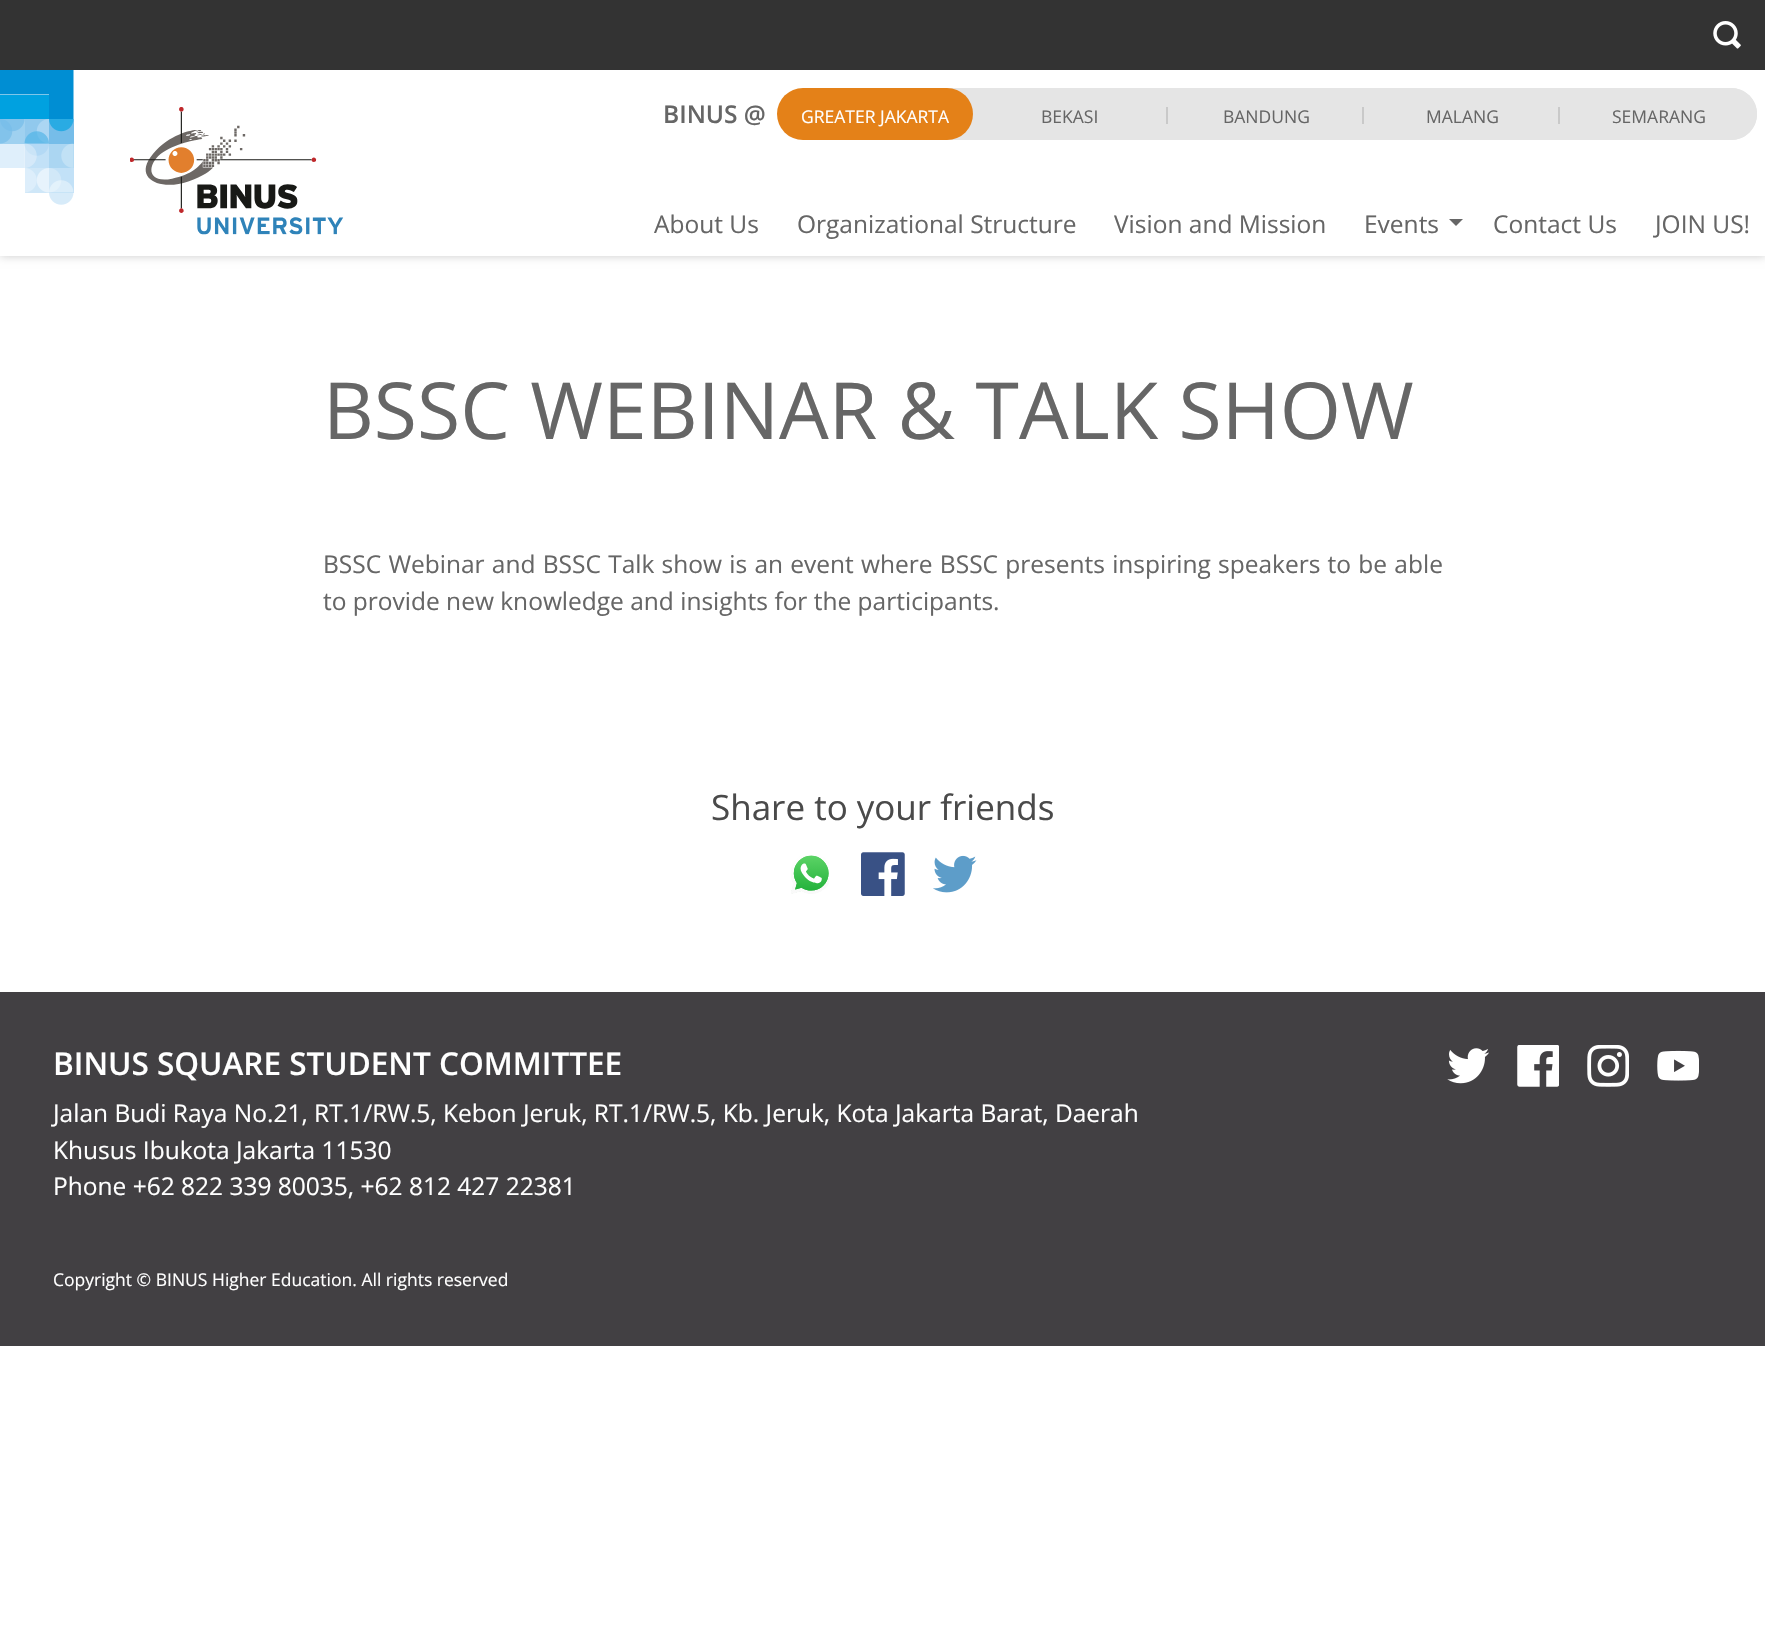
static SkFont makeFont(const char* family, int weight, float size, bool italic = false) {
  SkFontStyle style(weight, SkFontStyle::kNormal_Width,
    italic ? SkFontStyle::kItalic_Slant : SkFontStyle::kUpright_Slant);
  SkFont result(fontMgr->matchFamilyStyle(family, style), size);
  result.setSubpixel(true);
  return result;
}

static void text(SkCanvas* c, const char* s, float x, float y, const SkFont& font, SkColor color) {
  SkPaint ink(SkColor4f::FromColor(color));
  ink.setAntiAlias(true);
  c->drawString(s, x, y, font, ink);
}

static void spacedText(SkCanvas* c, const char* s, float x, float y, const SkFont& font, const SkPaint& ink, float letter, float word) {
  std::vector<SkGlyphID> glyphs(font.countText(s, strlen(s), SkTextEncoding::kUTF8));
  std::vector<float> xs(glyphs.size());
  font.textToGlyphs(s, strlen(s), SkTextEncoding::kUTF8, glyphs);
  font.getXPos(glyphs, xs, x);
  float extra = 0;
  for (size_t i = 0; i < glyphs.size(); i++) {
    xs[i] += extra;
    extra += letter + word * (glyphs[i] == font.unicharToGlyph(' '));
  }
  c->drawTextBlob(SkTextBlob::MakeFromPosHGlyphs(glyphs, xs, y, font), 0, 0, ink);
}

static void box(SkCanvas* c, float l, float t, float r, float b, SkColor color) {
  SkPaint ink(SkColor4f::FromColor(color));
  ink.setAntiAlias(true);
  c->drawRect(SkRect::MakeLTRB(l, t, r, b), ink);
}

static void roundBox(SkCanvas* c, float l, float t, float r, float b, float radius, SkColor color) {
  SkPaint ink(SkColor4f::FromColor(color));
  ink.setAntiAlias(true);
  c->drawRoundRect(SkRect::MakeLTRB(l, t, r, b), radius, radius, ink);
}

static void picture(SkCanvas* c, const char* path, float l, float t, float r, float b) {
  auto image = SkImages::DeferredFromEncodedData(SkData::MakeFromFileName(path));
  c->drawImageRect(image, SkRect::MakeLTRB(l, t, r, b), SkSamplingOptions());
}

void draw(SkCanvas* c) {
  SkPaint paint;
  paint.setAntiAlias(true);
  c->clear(0xffffffff);
  paint.setColor(0x33000000);
  paint.setMaskFilter(SkMaskFilter::MakeBlur(kNormal_SkBlurStyle, 4.5f));
  c->drawRect(SkRect::MakeLTRB(0, 70, 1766, 256), paint);
  paint.setMaskFilter(nullptr);
  box(c, 0, 0, 1765, 70, 0xff333333);
  picture(c, "img_01.png", 1713, 21, 1741, 49);
  box(c, 0, 70, 1765, 256, 0xffffffff);
  picture(c, "img_02.png", 0, 70, 74, 205);
  picture(c, "img_03.png", 130, 107, 344, 235);
  roundBox(c, 663, 88, 1757, 140, 26, 0xffe5e5e5);
  box(c, 663, 88, 803, 140, 0xffffffff);
  SkFont face1 = makeFont("Open Sans", 600, 24.5f);
  text(c, "BINUS @", 663, 123, face1, 0xff666666);
  roundBox(c, 777, 88, 973, 140, 26, 0xffe48118);
  SkFont face2 = makeFont("Open Sans", 400, 17.5f);
  text(c, "GREATER JAKARTA", 801, 123, face2, 0xffffffff);
  box(c, 1166, 107, 1168, 124, 0xffc9c9c9);
  text(c, "BEKASI", 1041, 123, face2, 0xff666666);
  box(c, 1362, 107, 1364, 124, 0xffc9c9c9);
  text(c, "BANDUNG", 1223, 123, face2, 0xff666666);
  box(c, 1558, 107, 1560, 124, 0xffc9c9c9);
  text(c, "MALANG", 1426, 123, face2, 0xff666666);
  paint.setColor(0xffe5e5e5);
  c->drawPath(SkPathBuilder().moveTo(1561, 88).lineTo(1731, 88).cubicTo(1745.5f, 88, 1757, 99.5f, 1757, 114).cubicTo(1757, 128.5f, 1745.5f, 140, 1731, 140).lineTo(1561, 140).close().detach(), paint);
  text(c, "SEMARANG", 1612, 123, face2, 0xff666666);
  SkFont face3 = makeFont("Open Sans", 400, 24.5f);
  text(c, "About Us", 654, 233, face3, 0xff666666);
  text(c, "Organizational Structure", 797, 233, face3, 0xff666666);
  text(c, "Vision and Mission", 1114, 233, face3, 0xff666666);
  text(c, "Events", 1364, 233, face3, 0xff666666);
  paint.setColor(0xff666666);
  c->drawPath(SkPathBuilder().moveTo(1449, 219).lineTo(1463, 219).lineTo(1456, 226).close().detach(), paint);
  text(c, "Contact Us", 1493, 233, face3, 0xff666666);
  text(c, "JOIN US!", 1655, 233, face3, 0xff666666);
  SkFont face4 = makeFont("Open Sans", 400, 78.75f);
  text(c, "BSSC WEBINAR & TALK SHOW", 323, 439, face4, 0xff666666);
  spacedText(c, "BSSC Webinar and BSSC Talk show is an event where BSSC presents inspiring speakers to be able", 323, 573, face3, paint, 0, 0.9f);
  text(c, "to provide new knowledge and insights for the participants.", 323, 610, face3, 0xff666666);
  SkFont face5 = makeFont("Open Sans", 400, 35);
  text(c, "Share to your friends", 711, 820, face5, 0xff4a4a4a);
  picture(c, "img_04.png", 791, 855, 829, 894);
  picture(c, "img_05.png", 861, 852, 905, 896);
  picture(c, "img_06.png", 933, 855, 977, 893);
  box(c, 0, 992, 1765, 1346, 0xff424043);
  SkFont face6 = makeFont("Open Sans", 600, 31.5f);
  text(c, "BINUS SQUARE STUDENT COMMITTEE", 53, 1075, face6, 0xffffffff);
  text(c, "Jalan Budi Raya No.21, RT.1/RW.5, Kebon Jeruk, RT.1/RW.5, Kb. Jeruk, Kota Jakarta Barat, Daerah", 53, 1122, face3, 0xffffffff);
  text(c, "Khusus Ibukota Jakarta 11530", 53, 1159, face3, 0xffffffff);
  text(c, "Phone +62 822 339 80035, +62 812 427 22381", 53, 1195, face3, 0xffffffff);
  picture(c, "img_07.png", 1447, 1048, 1489, 1084);
  picture(c, "img_08.png", 1517, 1045, 1559, 1087);
  picture(c, "img_09.png", 1587, 1045, 1629, 1087);
  picture(c, "img_10.png", 1657, 1050, 1699, 1081);
  text(c, "Copyright © BINUS Higher Education. All rights reserved", 53, 1286, face2, 0xffffffff);
}
